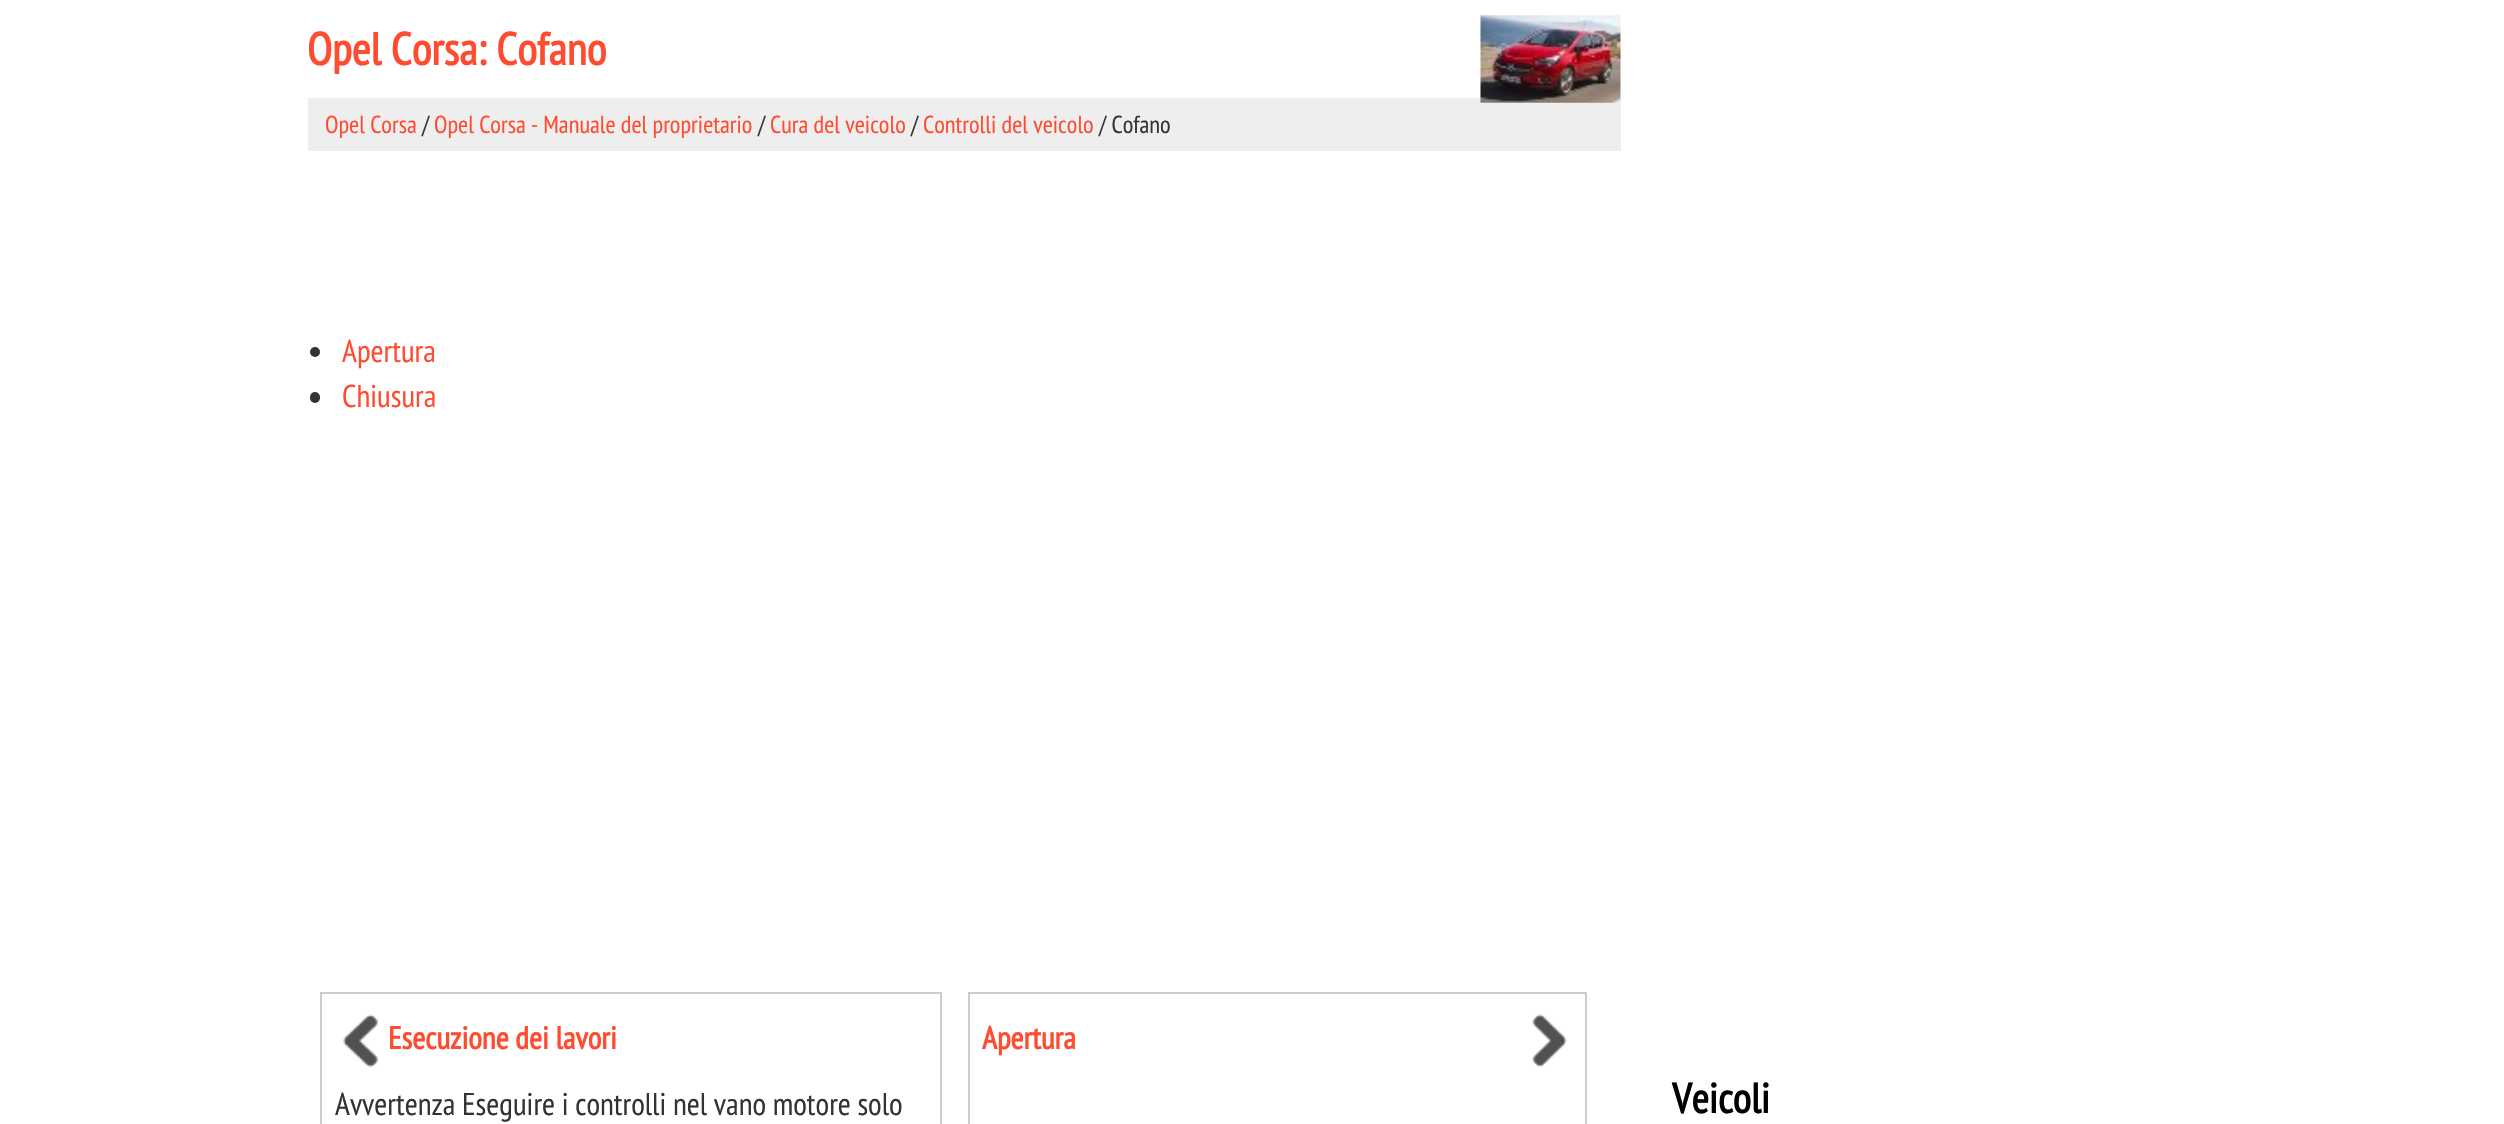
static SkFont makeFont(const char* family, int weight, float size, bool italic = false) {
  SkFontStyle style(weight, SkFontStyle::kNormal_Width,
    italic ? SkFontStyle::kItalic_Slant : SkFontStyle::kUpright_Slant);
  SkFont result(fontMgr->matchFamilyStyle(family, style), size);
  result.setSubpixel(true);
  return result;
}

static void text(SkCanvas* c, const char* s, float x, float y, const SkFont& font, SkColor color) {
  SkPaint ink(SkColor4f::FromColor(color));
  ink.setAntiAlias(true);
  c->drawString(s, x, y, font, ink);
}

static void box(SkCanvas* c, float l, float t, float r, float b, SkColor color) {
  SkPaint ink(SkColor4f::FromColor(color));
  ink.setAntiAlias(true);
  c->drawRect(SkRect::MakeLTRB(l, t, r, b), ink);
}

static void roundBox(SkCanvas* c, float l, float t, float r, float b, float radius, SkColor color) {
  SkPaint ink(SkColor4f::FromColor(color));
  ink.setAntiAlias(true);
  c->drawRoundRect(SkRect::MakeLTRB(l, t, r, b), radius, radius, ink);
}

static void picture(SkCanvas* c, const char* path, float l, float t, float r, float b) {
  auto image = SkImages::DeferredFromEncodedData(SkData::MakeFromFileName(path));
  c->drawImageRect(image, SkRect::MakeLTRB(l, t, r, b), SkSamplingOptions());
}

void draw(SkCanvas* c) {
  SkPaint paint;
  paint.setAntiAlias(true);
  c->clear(0xffffffff);
  SkFont face1 = makeFont("PT Sans Narrow", 700, 45.5f);
  text(c, "Opel Corsa: Cofano", 307, 65, face1, 0xffff4c30);
  box(c, 308, 98, 1621, 151, 0xffeeeeee);
  picture(c, "img_01.png", 1480, 15, 1621, 103);
  SkFont face2 = makeFont("PT Sans Narrow", 400, 24.5f);
  text(c, "Opel Corsa", 325, 133, face2, 0xffff4c30);
  text(c, "/", 422, 133, face2, 0xff333333);
  text(c, "Opel Corsa - Manuale del proprietario", 434, 133, face2, 0xffff4c30);
  text(c, "/", 758, 133, face2, 0xff333333);
  text(c, "Cura del veicolo", 770, 133, face2, 0xffff4c30);
  text(c, "/", 911, 133, face2, 0xff333333);
  text(c, "Controlli del veicolo", 923, 133, face2, 0xffff4c30);
  text(c, "/ Cofano", 1099, 133, face2, 0xff333333);
  paint.setColor(0xff333333);
  c->drawCircle(315, 352, 5, paint);
  SkFont face3 = makeFont("PT Sans Narrow", 400, 31.5f);
  text(c, "Apertura", 342, 362, face3, 0xffff4c30);
  roundBox(c, 310, 392, 320, 403, 5, 0xff333333);
  text(c, "Chiusura", 342, 407, face3, 0xffff4c30);
  paint.setStyle(SkPaint::kStroke_Style);
  paint.setStrokeWidth(2);
  paint.setColor(0xffcccccc);
  c->drawRect(SkRect::MakeLTRB(321, 993, 941, 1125), paint);
  picture(c, "img_02.png", 343, 1014, 378, 1067);
  SkFont face4 = makeFont("PT Sans Narrow", 700, 31.5f);
  text(c, "Esecuzione dei lavori", 388, 1049, face4, 0xffff4c30);
  text(c, "Avvertenza Eseguire i controlli nel vano motore solo", 335, 1115, face3, 0xff333333);
  c->drawRect(SkRect::MakeLTRB(969, 993, 1586, 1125), paint);
  picture(c, "img_03.png", 1532, 1014, 1567, 1067);
  text(c, "Apertura", 982, 1049, face4, 0xffff4c30);
  SkFont face5 = makeFont("PT Sans Narrow", 700, 42);
  text(c, "Veicoli", 1672, 1113, face5, 0xff000000);
}
